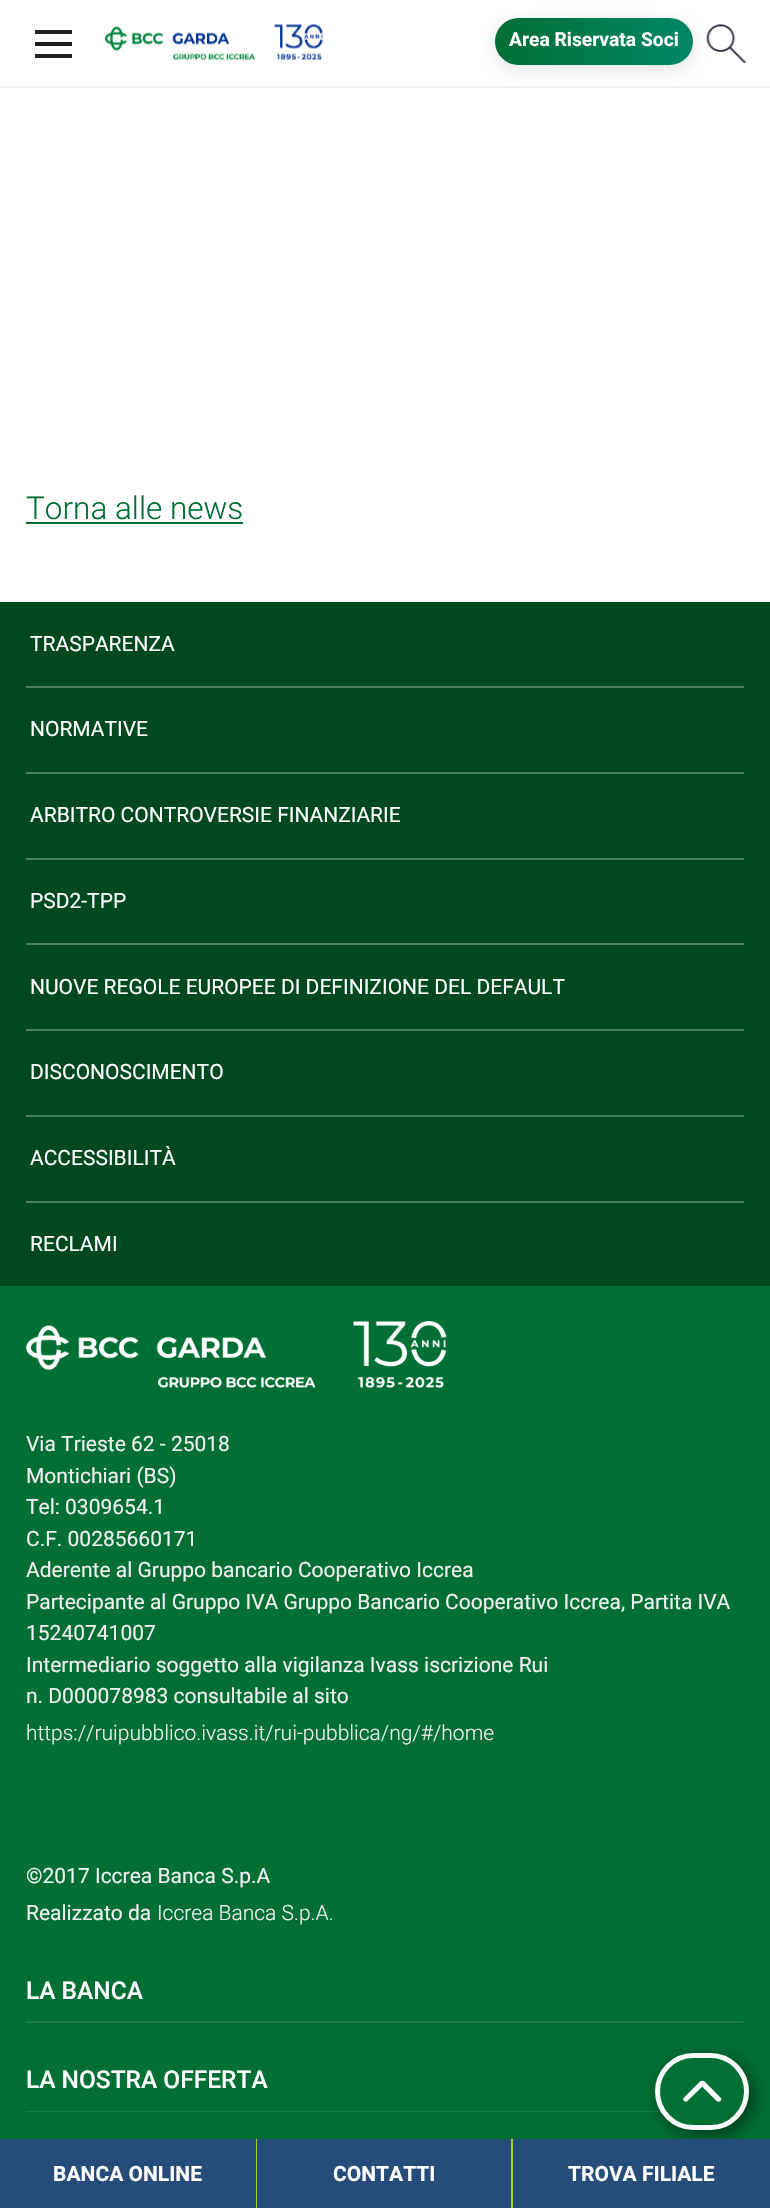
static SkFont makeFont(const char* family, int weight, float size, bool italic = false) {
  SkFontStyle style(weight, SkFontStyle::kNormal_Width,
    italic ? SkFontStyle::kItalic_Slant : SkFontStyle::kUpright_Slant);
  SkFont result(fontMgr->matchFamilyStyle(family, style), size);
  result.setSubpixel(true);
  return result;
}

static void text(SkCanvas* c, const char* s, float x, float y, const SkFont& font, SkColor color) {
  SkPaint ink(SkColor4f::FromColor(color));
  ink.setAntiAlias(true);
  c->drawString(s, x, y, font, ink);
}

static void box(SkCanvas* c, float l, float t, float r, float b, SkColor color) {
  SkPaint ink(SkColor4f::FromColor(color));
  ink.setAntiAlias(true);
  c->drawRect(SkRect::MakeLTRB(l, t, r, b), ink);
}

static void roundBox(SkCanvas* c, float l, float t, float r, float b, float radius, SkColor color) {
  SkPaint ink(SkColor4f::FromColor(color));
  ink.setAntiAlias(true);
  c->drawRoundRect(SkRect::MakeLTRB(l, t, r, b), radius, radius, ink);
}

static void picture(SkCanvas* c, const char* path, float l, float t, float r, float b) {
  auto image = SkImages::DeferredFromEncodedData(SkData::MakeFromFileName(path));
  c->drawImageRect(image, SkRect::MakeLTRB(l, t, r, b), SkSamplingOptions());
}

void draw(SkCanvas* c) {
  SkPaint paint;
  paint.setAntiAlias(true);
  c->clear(0xffffffff);
  box(c, 0, 86, 770, 88, 0xfff1f1f1);
  box(c, 35, 42, 72, 46, 0xff202020);
  box(c, 35, 30, 72, 34, 0xff202020);
  box(c, 35, 54, 72, 58, 0xff202020);
  picture(c, "img_01.png", 105, 24, 323, 60);
  paint.setColor(0x1a000000);
  paint.setMaskFilter(SkMaskFilter::MakeBlur(kNormal_SkBlurStyle, 9));
  c->drawRoundRect(SkRect::MakeLTRB(495, 23, 693, 70), 23.5f, 23.5f, paint);
  paint.setMaskFilter(nullptr);
  {
    const SkColor colors[] = {0xff008766, 0xff006f34};
    const float stops[] = {0, 1};
    const SkPoint ends[] = {{693, 41}, {495, 41}};
    paint.setShader(SkGradientShader::MakeLinear(ends, colors, stops, 2, SkTileMode::kClamp));
    paint.setAlpha(255);
  }
  c->drawRoundRect(SkRect::MakeLTRB(495, 18, 693, 65), 23.5f, 23.5f, paint);
  SkFont face1 = makeFont("Roboto", 700, 19.25f);
  text(c, "Area Riservata Soci", 509, 46, face1, 0xffffffff);
  picture(c, "img_02.png", 706, 24, 747, 63);
  SkFont face2 = makeFont("Roboto", 300, 31.5f);
  text(c, "Torna alle news", 26, 519, face2, 0xff006f34);
  box(c, 26, 522, 243, 524, 0xff006f34);
  box(c, 0, 602, 770, 1286, 0xff00491f);
  box(c, 26, 686, 744, 688, 0xff4d8062);
  SkFont face3 = makeFont("Roboto", 400, 21);
  text(c, "TRASPARENZA", 30, 651, face3, 0xffffffff);
  box(c, 26, 772, 744, 774, 0xff4d8062);
  text(c, "NORMATIVE", 30, 736, face3, 0xffffffff);
  box(c, 26, 858, 744, 860, 0xff4d8062);
  text(c, "ARBITRO CONTROVERSIE FINANZIARIE", 30, 822, face3, 0xffffffff);
  box(c, 26, 943, 744, 945, 0xff4d8062);
  text(c, "PSD2-TPP", 30, 908, face3, 0xffffffff);
  box(c, 26, 1029, 744, 1031, 0xff4d8062);
  text(c, "NUOVE REGOLE EUROPEE DI DEFINIZIONE DEL DEFAULT", 30, 994, face3, 0xffffffff);
  box(c, 26, 1115, 744, 1117, 0xff4d8062);
  text(c, "DISCONOSCIMENTO", 30, 1079, face3, 0xffffffff);
  box(c, 26, 1201, 744, 1203, 0xff4d8062);
  text(c, "ACCESSIBILITÀ", 30, 1165, face3, 0xffffffff);
  text(c, "RECLAMI", 30, 1251, face3, 0xffffffff);
  box(c, 0, 1286, 770, 2139, 0xff006f34);
  picture(c, "img_03.png", 26, 1321, 447, 1388);
  text(c, "Via Trieste 62 - 25018", 26, 1451, face3, 0xfff1f1f1);
  text(c, "Montichiari (BS)", 26, 1483, face3, 0xfff1f1f1);
  text(c, "Tel: 0309654.1", 26, 1514, face3, 0xfff1f1f1);
  text(c, "C.F. 00285660171", 26, 1546, face3, 0xfff1f1f1);
  text(c, "Aderente al Gruppo bancario Cooperativo Iccrea", 26, 1577, face3, 0xfff1f1f1);
  text(c, "Partecipante al Gruppo IVA Gruppo Bancario Cooperativo Iccrea, Partita IVA", 26, 1609, face3, 0xfff1f1f1);
  text(c, "15240741007", 26, 1640, face3, 0xfff1f1f1);
  text(c, "Intermediario soggetto alla vigilanza Ivass iscrizione Rui", 26, 1672, face3, 0xfff1f1f1);
  text(c, "n. D000078983 consultabile al sito", 26, 1703, face3, 0xfff1f1f1);
  SkFont face4 = makeFont("Roboto", 300, 21);
  text(c, "https://ruipubblico.ivass.it/rui-pubblica/ng/#/home", 26, 1740, face4, 0xfff1f1f1);
  text(c, "©2017 Iccrea Banca S.p.A", 26, 1883, face3, 0xfff1f1f1);
  text(c, "Realizzato da", 26, 1920, face3, 0xfff1f1f1);
  text(c, "Iccrea Banca S.p.A.", 157, 1920, face4, 0xfff1f1f1);
  box(c, 26, 2021, 744, 2023, 0xff1a7d48);
  SkFont face5 = makeFont("Roboto", 500, 24.5f);
  text(c, "LA BANCA", 26, 1999, face5, 0xffffffff);
  box(c, 26, 2111, 744, 2112, 0xff1a7d48);
  text(c, "LA NOSTRA OFFERTA", 26, 2088, face5, 0xffffffff);
  c->save();
  c->clipPath(SkPathBuilder(SkPathFillType::kEvenOdd).moveTo(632, 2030).lineTo(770, 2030).lineTo(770, 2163).lineTo(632, 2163).close().moveTo(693.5f, 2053).lineTo(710.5f, 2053).cubicTo(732, 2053, 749, 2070, 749, 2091.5f).cubicTo(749, 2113, 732, 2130, 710.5f, 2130).lineTo(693.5f, 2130).cubicTo(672, 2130, 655, 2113, 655, 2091.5f).cubicTo(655, 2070, 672, 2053, 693.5f, 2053).close().detach(), true);
  paint.setShader(nullptr);
  paint.setColor(0x7d000000);
  paint.setMaskFilter(SkMaskFilter::MakeBlur(kNormal_SkBlurStyle, 9));
  c->drawRoundRect(SkRect::MakeLTRB(660, 2058, 754, 2135), 38.5f, 38.5f, paint);
  paint.setMaskFilter(nullptr);
  c->restore();
  roundBox(c, 655, 2053, 749, 2130, 38.5f, 0xf7006f34);
  paint.setStyle(SkPaint::kStroke_Style);
  paint.setStrokeWidth(5);
  paint.setColor(0xf7ffffff);
  c->drawRoundRect(SkRect::MakeLTRB(657.5f, 2055.5f, 746.5f, 2127.5f), 36, 36, paint);
  paint.setStyle(SkPaint::kFill_Style);
  paint.setColor(0xfff8fbfa);
  c->drawPath(SkPathBuilder().moveTo(704, 2081.5f).cubicTo(705, 2082.5f, 705, 2084, 704, 2085).lineTo(687.5f, 2101).cubicTo(686.5f, 2102, 685, 2102, 684, 2101).cubicTo(683, 2100, 683, 2098.5f, 684, 2097.5f).lineTo(700, 2081.5f).cubicTo(701, 2080.5f, 702.5f, 2080.5f, 704, 2081.5f).close().detach(), paint);
  c->drawPath(SkPathBuilder().moveTo(700.5f, 2081.5f).cubicTo(701.5f, 2080.5f, 703.5f, 2080.5f, 704.5f, 2081.5f).lineTo(720.5f, 2097.5f).cubicTo(721.5f, 2098.5f, 721.5f, 2100, 720.5f, 2101).cubicTo(719.5f, 2102, 717.5f, 2102, 716.5f, 2101).lineTo(700.5f, 2085).cubicTo(699.5f, 2084, 699.5f, 2082.5f, 700.5f, 2081.5f).close().detach(), paint);
  box(c, 256, 2139, 257, 2208, 0xffb2ce27);
  box(c, 0, 2139, 256, 2208, 0xff264d7a);
  SkFont face6 = makeFont("Roboto", 700, 21);
  text(c, "BANCA ONLINE", 53, 2181, face6, 0xffffffff);
  box(c, 511, 2139, 513, 2208, 0xffb2ce27);
  box(c, 257, 2139, 511, 2208, 0xff264d7a);
  text(c, "CONTATTI", 333, 2181, face6, 0xffffffff);
  box(c, 513, 2139, 770, 2208, 0xff264d7a);
  text(c, "TROVA FILIALE", 568, 2181, face6, 0xffffffff);
}
